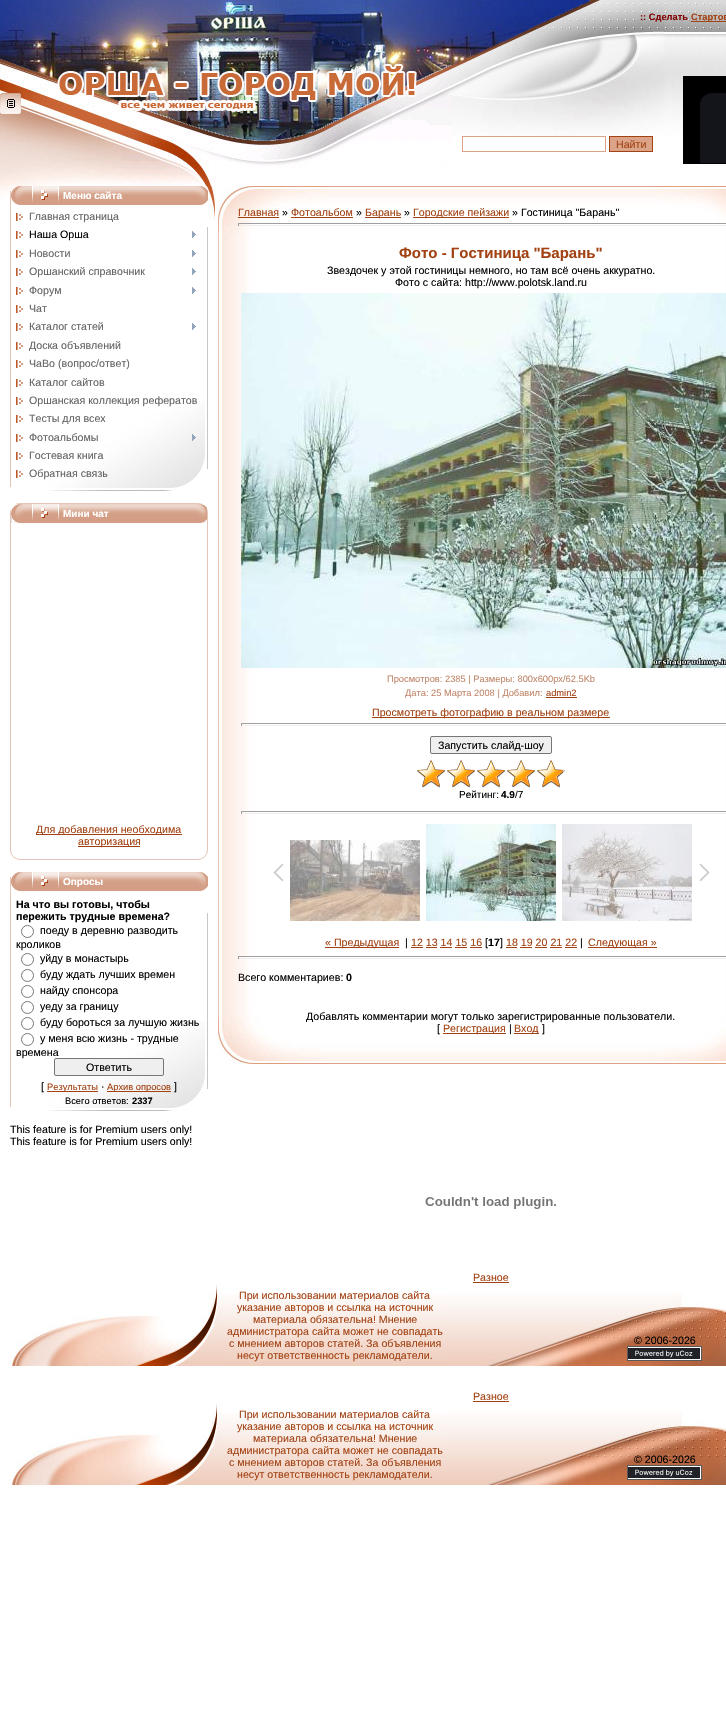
static SkFont makeFont(const char* family, int weight, float size, bool italic = false) {
  SkFontStyle style(weight, SkFontStyle::kNormal_Width,
    italic ? SkFontStyle::kItalic_Slant : SkFontStyle::kUpright_Slant);
  SkFont result(fontMgr->matchFamilyStyle(family, style), size);
  result.setSubpixel(true);
  return result;
}

static void text(SkCanvas* c, const char* s, float x, float y, const SkFont& font, SkColor color) {
  SkPaint ink(SkColor4f::FromColor(color));
  ink.setAntiAlias(true);
  c->drawString(s, x, y, font, ink);
}

static void box(SkCanvas* c, float l, float t, float r, float b, SkColor color) {
  SkPaint ink(SkColor4f::FromColor(color));
  ink.setAntiAlias(true);
  c->drawRect(SkRect::MakeLTRB(l, t, r, b), ink);
}

static void picture(SkCanvas* c, const char* path, float l, float t, float r, float b) {
  auto image = SkImages::DeferredFromEncodedData(SkData::MakeFromFileName(path));
  c->drawImageRect(image, SkRect::MakeLTRB(l, t, r, b), SkSamplingOptions());
}

void draw(SkCanvas* c) {
  SkPaint paint;
  paint.setAntiAlias(true);
  c->clear(0xffffffff);
  picture(c, "img_01.png", 720, 34, 726, 76);
  picture(c, "img_02.png", 0, 0, 121, 186);
  picture(c, "img_03.png", 0, 93, 21, 114);
  picture(c, "img_04.png", 121, 0, 452, 186);
  picture(c, "img_05.png", 452, 0, 726, 34);
  SkFont face1 = makeFont("Liberation Sans", 700, 9.3f);
  text(c, ":: Сделать", 640, 20, face1, 0xff800000);
  box(c, 691, 21, 726, 22, 0xffa24213);
  text(c, "Стартов", 691, 20, face1, 0xffa24213);
  picture(c, "img_06.png", 452, 34, 720, 136);
  paint.setStyle(SkPaint::kStroke_Style);
  paint.setStrokeWidth(1);
  paint.setColor(0xffdba388);
  c->drawRect(SkRect::MakeLTRB(462.5f, 136.5f, 605.5f, 151.5f), paint);
  paint.setStyle(SkPaint::kFill_Style);
  c->drawRect(SkRect::MakeLTRB(609.5f, 136.5f, 652.5f, 151.5f), paint);
  paint.setStyle(SkPaint::kStroke_Style);
  paint.setColor(0xffa24213);
  c->drawRect(SkRect::MakeLTRB(609.5f, 136.5f, 652.5f, 151.5f), paint);
  SkFont face2 = makeFont("Liberation Sans", 400, 10.65f);
  text(c, "Найти", 616, 148, face2, 0xffa24213);
  paint.setColor(0xff000000);
  c->drawRect(SkRect::MakeLTRB(683.5f, 76.5f, 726.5f, 163.5f), paint);
  picture(c, "img_07.png", 684, 77, 726, 163);
  picture(c, "img_08.png", 0, 186, 216, 221);
  box(c, 10, 191, 11, 487, 0xffe4c5b6);
  picture(c, "img_09.png", 11, 186, 208, 205);
  SkFont face3 = makeFont("Liberation Sans", 700, 10);
  text(c, "Меню сайта", 63, 199, face3, 0xffffffff);
  picture(c, "img_10.png", 48, 401, 207, 491);
  box(c, 207, 227, 208, 469, 0xffc6c6c6);
  picture(c, "img_11.png", 16, 213, 23, 221);
  text(c, "Главная страница", 29, 220, face2, 0xff626262);
  picture(c, "img_11.png", 16, 231, 23, 239);
  text(c, "Наша Орша", 29, 238, face2, 0xff000000);
  picture(c, "img_12.png", 192, 231, 196, 238);
  picture(c, "img_11.png", 16, 250, 23, 258);
  text(c, "Новости", 29, 257, face2, 0xff626262);
  picture(c, "img_12.png", 192, 250, 196, 257);
  picture(c, "img_11.png", 16, 268, 23, 276);
  text(c, "Оршанский справочник", 29, 275, face2, 0xff626262);
  picture(c, "img_12.png", 192, 268, 196, 275);
  picture(c, "img_11.png", 16, 287, 23, 295);
  text(c, "Форум", 29, 294, face2, 0xff626262);
  picture(c, "img_12.png", 192, 287, 196, 294);
  picture(c, "img_11.png", 16, 305, 23, 313);
  text(c, "Чат", 29, 312, face2, 0xff626262);
  picture(c, "img_11.png", 16, 323, 23, 331);
  text(c, "Каталог статей", 29, 330, face2, 0xff626262);
  picture(c, "img_12.png", 192, 323, 196, 330);
  picture(c, "img_11.png", 16, 342, 23, 350);
  text(c, "Доска объявлений", 29, 349, face2, 0xff626262);
  picture(c, "img_11.png", 16, 360, 23, 368);
  text(c, "ЧаВо (вопрос/ответ)", 29, 367, face2, 0xff626262);
  picture(c, "img_11.png", 16, 379, 23, 387);
  text(c, "Каталог сайтов", 29, 386, face2, 0xff626262);
  picture(c, "img_11.png", 16, 397, 23, 405);
  text(c, "Оршанская коллекция рефератов", 29, 404, face2, 0xff626262);
  picture(c, "img_11.png", 16, 415, 23, 423);
  text(c, "Тесты для всех", 29, 422, face2, 0xff626262);
  picture(c, "img_11.png", 16, 434, 23, 442);
  text(c, "Фотоальбомы", 29, 441, face2, 0xff626262);
  picture(c, "img_13.png", 192, 434, 196, 441);
  picture(c, "img_11.png", 16, 452, 23, 460);
  text(c, "Гостевая книга", 29, 459, face2, 0xff626262);
  picture(c, "img_11.png", 16, 470, 23, 478);
  text(c, "Обратная связь", 29, 477, face2, 0xff626262);
  paint.setColor(0xffe4c5b6);
  c->drawRoundRect(SkRect::MakeLTRB(10.5f, 503.5f, 207.5f, 859.5f), 9.5f, 9.5f, paint);
  picture(c, "img_14.png", 11, 504, 207, 523);
  text(c, "Мини чат", 63, 517, face3, 0xffffffff);
  box(c, 36, 834, 182, 835, 0xffa24213);
  text(c, "Для добавления необходима", 36, 833, face2, 0xffa24213);
  box(c, 78, 846, 140, 847, 0xffa24213);
  text(c, "авторизация", 78, 845, face2, 0xffa24213);
  box(c, 10, 877, 11, 1107, 0xffe4c5b6);
  picture(c, "img_15.png", 11, 872, 208, 891);
  text(c, "Опросы", 63, 885, face3, 0xffffffff);
  picture(c, "img_10.png", 48, 1021, 207, 1111);
  box(c, 207, 913, 208, 1089, 0xffc6c6c6);
  SkFont face4 = makeFont("Liberation Sans", 700, 10.65f);
  text(c, "На что вы готовы, чтобы", 16, 908, face4, 0xff000000);
  text(c, "пережить трудные времена?", 16, 920, face4, 0xff000000);
  paint.setColor(0xff767676);
  c->drawCircle(27.5f, 931.5f, 6, paint);
  text(c, "поеду в деревню разводить", 40, 934, face2, 0xff000000);
  text(c, "кроликов", 16, 948, face2, 0xff000000);
  c->drawCircle(27.5f, 959.5f, 6, paint);
  text(c, "уйду в монастырь", 40, 962, face2, 0xff000000);
  c->drawCircle(27.5f, 975.5f, 6, paint);
  text(c, "буду ждать лучших времен", 40, 978, face2, 0xff000000);
  c->drawCircle(27.5f, 991.5f, 6, paint);
  text(c, "найду спонсора", 40, 994, face2, 0xff000000);
  c->drawCircle(27.5f, 1007.5f, 6, paint);
  text(c, "уеду за границу", 40, 1010, face2, 0xff000000);
  c->drawCircle(27.5f, 1023.5f, 6, paint);
  text(c, "буду бороться за лучшую жизнь", 40, 1026, face2, 0xff000000);
  c->drawCircle(27.5f, 1039.5f, 6, paint);
  text(c, "у меня всю жизнь - трудные", 40, 1042, face2, 0xff000000);
  text(c, "времена", 16, 1056, face2, 0xff000000);
  paint.setStyle(SkPaint::kFill_Style);
  paint.setColor(0xffefefef);
  c->drawRoundRect(SkRect::MakeLTRB(54.5f, 1058.5f, 163.5f, 1075.5f), 1.5f, 1.5f, paint);
  paint.setStyle(SkPaint::kStroke_Style);
  paint.setColor(0xff767676);
  c->drawRoundRect(SkRect::MakeLTRB(54.5f, 1058.5f, 163.5f, 1075.5f), 1.5f, 1.5f, paint);
  text(c, "Ответить", 86, 1071, face2, 0xff000000);
  text(c, "[", 41, 1090, face2, 0xff000000);
  box(c, 47, 1091, 98, 1092, 0xffa24213);
  SkFont face5 = makeFont("Liberation Sans", 400, 9.3f);
  text(c, "Результаты", 47, 1090, face5, 0xffa24213);
  text(c, "·", 101, 1090, face2, 0xff000000);
  box(c, 107, 1091, 171, 1092, 0xffa24213);
  text(c, "Архив опросов", 107, 1090, face5, 0xffa24213);
  text(c, "]", 174, 1090, face2, 0xff000000);
  text(c, "Всего ответов:", 65, 1104, face5, 0xff000000);
  text(c, "2337", 132, 1104, face1, 0xff000000);
  text(c, "This feature is for Premium users only!", 10, 1133, face2, 0xff000000);
  text(c, "This feature is for Premium users only!", 10, 1145, face2, 0xff000000);
  picture(c, "img_16.png", 327, 237, 418, 293);
  picture(c, "img_17.png", 218, 186, 726, 1064);
  text(c, "Главная", 238, 216, face2, 0xffa24213);
  box(c, 238, 217, 279, 218, 0xffa24213);
  text(c, "»", 282, 216, face2, 0xff000000);
  text(c, "Фотоальбом", 291, 216, face2, 0xffa24213);
  box(c, 291, 217, 353, 218, 0xffa24213);
  text(c, "»", 356, 216, face2, 0xff000000);
  box(c, 365, 217, 401, 218, 0xffa24213);
  text(c, "Барань", 365, 216, face2, 0xffa24213);
  text(c, "»", 404, 216, face2, 0xff000000);
  box(c, 413, 217, 509, 218, 0xffa24213);
  text(c, "Городские пейзажи", 413, 216, face2, 0xffa24213);
  text(c, "» Гостиница \"Барань\"", 512, 216, face2, 0xff000000);
  box(c, 238, 223, 726, 224, 0xff9f9f9f);
  box(c, 238, 225, 726, 226, 0xffeeeeee);
  box(c, 238, 223, 239, 226, 0xff9f9f9f);
  SkFont face6 = makeFont("Liberation Sans", 700, 15);
  text(c, "Фото - Гостиница \"Барань\"", 399, 258, face6, 0xffa24213);
  text(c, "Звездочек у этой гостиницы немного, но там всё очень аккуратно.", 327, 274, face2, 0xff000000);
  text(c, "Фото с сайта: http://www.polotsk.land.ru", 395, 286, face2, 0xff000000);
  picture(c, "img_18.png", 241, 293, 726, 668);
  text(c, "Просмотров: 2385 | Размеры: 800x600px/62.5Kb", 387, 682, face5, 0xffc1876b);
  text(c, "Дата: 25 Марта 2008 | Добавил:", 405, 696, face5, 0xffc1876b);
  text(c, "admin2", 546, 696, face5, 0xffa24213);
  box(c, 546, 697, 577, 698, 0xffa24213);
  box(c, 372, 717, 610, 718, 0xffa24213);
  text(c, "Просмотреть фотографию в реальном размере", 372, 716, face2, 0xffa24213);
  box(c, 241, 723, 726, 724, 0xff9f9f9f);
  box(c, 241, 725, 726, 726, 0xffeeeeee);
  box(c, 241, 723, 242, 726, 0xff9f9f9f);
  paint.setStyle(SkPaint::kFill_Style);
  paint.setColor(0xffefefef);
  c->drawRoundRect(SkRect::MakeLTRB(430.5f, 736.5f, 551.5f, 753.5f), 1.5f, 1.5f, paint);
  paint.setStyle(SkPaint::kStroke_Style);
  paint.setColor(0xff767676);
  c->drawRoundRect(SkRect::MakeLTRB(430.5f, 736.5f, 551.5f, 753.5f), 1.5f, 1.5f, paint);
  text(c, "Запустить слайд-шоу", 438, 749, face2, 0xff000000);
  picture(c, "img_19.png", 417, 760, 565, 788);
  picture(c, "img_20.png", 417, 760, 563, 788);
  SkFont face7 = makeFont("Liberation Sans", 400, 10);
  text(c, "Рейтинг:", 459, 798, face7, 0xff000000);
  text(c, "4.9", 501, 798, face3, 0xff000000);
  text(c, "/7", 515, 798, face7, 0xff000000);
  box(c, 241, 811, 726, 812, 0xff9f9f9f);
  box(c, 241, 813, 726, 814, 0xffeeeeee);
  box(c, 241, 811, 242, 814, 0xff9f9f9f);
  picture(c, "img_21.png", 273, 864, 284, 881);
  picture(c, "img_22.png", 290, 840, 420, 921);
  picture(c, "img_23.png", 426, 824, 556, 921);
  picture(c, "img_24.png", 562, 824, 692, 921);
  picture(c, "img_25.png", 699, 864, 710, 881);
  box(c, 325, 947, 399, 948, 0xffa24213);
  text(c, "« Предыдущая", 325, 946, face2, 0xffa24213);
  text(c, "|", 405, 946, face2, 0xff000000);
  text(c, "12 13 14 15 16", 411, 946, face2, 0xffa24213);
  box(c, 411, 947, 423, 948, 0xffa24213);
  text(c, "[", 485, 946, face2, 0xff000000);
  text(c, "17", 488, 946, face4, 0xff000000);
  text(c, "]", 500, 946, face2, 0xff000000);
  text(c, "18 19 20 21 22", 506, 946, face2, 0xffa24213);
  box(c, 506, 947, 517, 948, 0xffa24213);
  text(c, "|", 580, 946, face2, 0xff000000);
  box(c, 588, 947, 657, 948, 0xffa24213);
  text(c, "Следующая »", 588, 946, face2, 0xffa24213);
  box(c, 426, 947, 437, 948, 0xffa24213);
  box(c, 440, 947, 452, 948, 0xffa24213);
  box(c, 455, 947, 467, 948, 0xffa24213);
  box(c, 470, 947, 482, 948, 0xffa24213);
  box(c, 520, 947, 532, 948, 0xffa24213);
  box(c, 535, 947, 547, 948, 0xffa24213);
  box(c, 550, 947, 562, 948, 0xffa24213);
  box(c, 565, 947, 577, 948, 0xffa24213);
  box(c, 238, 956, 726, 957, 0xff9f9f9f);
  box(c, 238, 958, 726, 959, 0xffeeeeee);
  box(c, 238, 956, 239, 959, 0xff9f9f9f);
  text(c, "Всего комментариев:", 238, 981, face2, 0xff000000);
  text(c, "0", 346, 981, face4, 0xff000000);
  text(c, "Добавлять комментарии могут только зарегистрированные пользователи.", 306, 1020, face2, 0xff000000);
  text(c, "[", 437, 1032, face2, 0xff000000);
  box(c, 443, 1033, 506, 1034, 0xffa24213);
  text(c, "Регистрация", 443, 1032, face2, 0xffa24213);
  text(c, "|", 509, 1032, face2, 0xff000000);
  box(c, 514, 1033, 539, 1034, 0xffa24213);
  text(c, "Вход", 514, 1032, face2, 0xffa24213);
  text(c, "]", 542, 1032, face2, 0xff000000);
  picture(c, "img_26.png", 425, 1197, 556, 1209);
  text(c, "Разное", 473, 1281, face2, 0xffa24213);
  box(c, 473, 1282, 509, 1283, 0xffa24213);
  picture(c, "img_27.png", 8, 1284, 223, 1366);
  picture(c, "img_28.png", 223, 1294, 446, 1366);
  text(c, "При использовании материалов сайта", 239, 1299, face2, 0xffa24213);
  text(c, "указание авторов и ссылка на источник", 237, 1311, face2, 0xffa24213);
  text(c, "материала обязательна! Мнение", 253, 1323, face2, 0xffa24213);
  text(c, "администратора сайта может не совпадать", 227, 1335, face2, 0xffa24213);
  text(c, "с мнением авторов статей. За объявления", 229, 1347, face2, 0xffa24213);
  text(c, "несут ответственность рекламодатели.", 237, 1359, face2, 0xffa24213);
  picture(c, "img_29.png", 446, 1292, 726, 1366);
  text(c, "© 2006-2026", 634, 1344, face2, 0xff000000);
  picture(c, "img_30.png", 627, 1346, 702, 1361);
  text(c, "Разное", 473, 1400, face2, 0xffa24213);
  box(c, 473, 1401, 509, 1402, 0xffa24213);
  picture(c, "img_27.png", 8, 1403, 223, 1485);
  picture(c, "img_28.png", 223, 1413, 446, 1485);
  text(c, "При использовании материалов сайта", 239, 1418, face2, 0xffa24213);
  text(c, "указание авторов и ссылка на источник", 237, 1430, face2, 0xffa24213);
  text(c, "материала обязательна! Мнение", 253, 1442, face2, 0xffa24213);
  text(c, "администратора сайта может не совпадать", 227, 1454, face2, 0xffa24213);
  text(c, "с мнением авторов статей. За объявления", 229, 1466, face2, 0xffa24213);
  text(c, "несут ответственность рекламодатели.", 237, 1478, face2, 0xffa24213);
  picture(c, "img_29.png", 446, 1411, 726, 1485);
  text(c, "© 2006-2026", 634, 1463, face2, 0xff000000);
  picture(c, "img_30.png", 627, 1465, 702, 1480);
}
